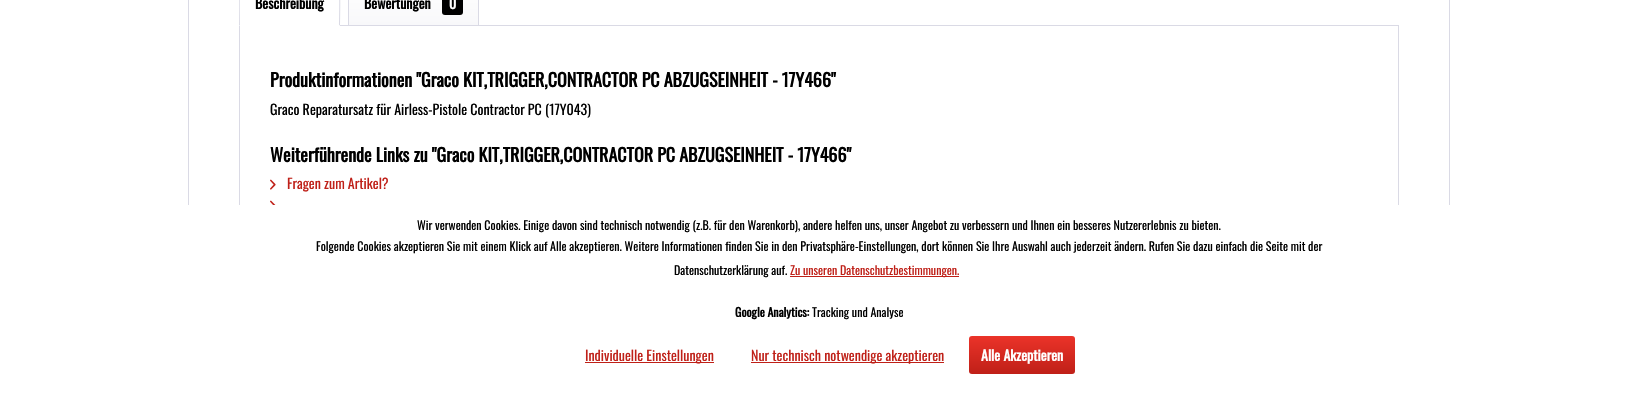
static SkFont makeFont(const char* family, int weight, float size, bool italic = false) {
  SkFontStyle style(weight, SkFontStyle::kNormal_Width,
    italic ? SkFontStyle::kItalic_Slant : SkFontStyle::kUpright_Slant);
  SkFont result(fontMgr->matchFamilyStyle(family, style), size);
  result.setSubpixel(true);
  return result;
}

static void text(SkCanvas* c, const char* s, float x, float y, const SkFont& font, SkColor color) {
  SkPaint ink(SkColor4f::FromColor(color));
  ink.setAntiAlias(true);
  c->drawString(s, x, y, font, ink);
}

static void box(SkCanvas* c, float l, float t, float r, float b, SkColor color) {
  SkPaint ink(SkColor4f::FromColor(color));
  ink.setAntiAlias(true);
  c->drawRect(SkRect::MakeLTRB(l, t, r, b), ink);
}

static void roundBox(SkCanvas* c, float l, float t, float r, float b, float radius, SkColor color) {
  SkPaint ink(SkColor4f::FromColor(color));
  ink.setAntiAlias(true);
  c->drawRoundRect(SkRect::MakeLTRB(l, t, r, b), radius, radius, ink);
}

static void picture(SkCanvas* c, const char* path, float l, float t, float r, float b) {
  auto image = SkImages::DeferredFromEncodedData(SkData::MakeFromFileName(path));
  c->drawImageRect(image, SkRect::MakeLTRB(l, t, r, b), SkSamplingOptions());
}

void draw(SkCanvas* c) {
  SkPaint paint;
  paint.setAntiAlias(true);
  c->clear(0xffffffff);
  paint.setStyle(SkPaint::kStroke_Style);
  paint.setStrokeWidth(1);
  paint.setColor(0xffdadae5);
  c->drawRect(SkRect::MakeLTRB(188.5f, -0.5f, 1449.5f, 325.5f), paint);
  c->drawRect(SkRect::MakeLTRB(239.5f, 25.5f, 1398.5f, 244.5f), paint);
  box(c, 239, 25, 340, 26, 0xffffffff);
  paint.setStyle(SkPaint::kFill_Style);
  c->drawPath(SkPathBuilder().moveTo(340, 26).cubicTo(340, 21, 341, -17, 339, -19).lineTo(338, -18).cubicTo(340, -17, 339, 20, 339, 25).close().detach(), paint);
  paint.setColor(0xffffffff);
  c->drawPath(SkPathBuilder().moveTo(340, 26).lineTo(339, 25).lineTo(240, 25).lineTo(239, 26).close().detach(), paint);
  paint.setColor(0xffdadae5);
  c->drawPath(SkPathBuilder().moveTo(239, 26).lineTo(240, 25).cubicTo(240, 20, 239, -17, 241, -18).lineTo(240, -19).lineTo(239, -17).close().detach(), paint);
  SkFont face1 = makeFont("Oswald", 700, 14);
  text(c, "Beschreibung", 255, 9, face1, 0xff000000);
  {
    const SkColor colors[] = {0xffffffff, 0xfff8f8fa};
    const float stops[] = {0, 1};
    const SkPoint ends[] = {{414, -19}, {414, 25}};
    paint.setShader(SkGradientShader::MakeLinear(ends, colors, stops, 2, SkTileMode::kClamp));
    paint.setAlpha(255);
  }
  c->drawRect(SkRect::MakeLTRB(349, 0, 478, 25), paint);
  paint.setStyle(SkPaint::kStroke_Style);
  paint.setShader(nullptr);
  paint.setColor(0xffdadae5);
  c->drawRect(SkRect::MakeLTRB(348.5f, -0.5f, 478.5f, 25.5f), paint);
  text(c, "Bewertungen", 364, 9, face1, 0xff000000);
  roundBox(c, 442, -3, 463, 15, 3, 0xff000000);
  text(c, "0", 449, 9, face1, 0xffffffff);
  SkFont face2 = makeFont("Oswald", 700, 18);
  text(c, "Produktinformationen \"Graco KIT,TRIGGER,CONTRACTOR PC ABZUGSEINHEIT - 17Y466\"", 270, 87, face2, 0xff000000);
  SkFont face3 = makeFont("Oswald", 400, 14);
  text(c, "Graco Reparatursatz für Airless-Pistole Contractor PC (17Y043)", 270, 115, face3, 0xff000000);
  text(c, "Weiterführende Links zu \"Graco KIT,TRIGGER,CONTRACTOR PC ABZUGSEINHEIT - 17Y466\"", 270, 162, face2, 0xff000000);
  picture(c, "img_01.png", 270, 179, 276, 190);
  text(c, "Fragen zum Artikel?", 287, 189, face3, 0xffbf2018);
  picture(c, "img_02.png", 270, 200, 276, 205);
  box(c, 188, 205, 1450, 326, 0xffffffff);
  SkFont face4 = makeFont("Oswald", 400, 12);
  text(c, "Wir verwenden Cookies. Einige davon sind technisch notwendig (z.B. für den Warenkorb), andere helfen uns, unser Angebot zu verbessern und Ihnen ein besseres Nutzererlebnis zu bieten.", 417, 230, face4, 0xff000000);
  text(c, "Folgende Cookies akzeptieren Sie mit einem Klick auf Alle akzeptieren. Weitere Informationen finden Sie in den Privatsphäre-Einstellungen, dort können Sie Ihre Auswahl auch jederzeit ändern. Rufen Sie dazu einfach die Seite mit der", 316, 251, face4, 0xff000000);
  text(c, "Datenschutzerklärung auf.", 674, 275, face4, 0xff000000);
  box(c, 790, 276, 959, 277, 0xffbf2018);
  text(c, "Zu unseren Datenschutzbestimmungen.", 790, 275, face4, 0xffbf2018);
  SkFont face5 = makeFont("Oswald", 700, 12);
  text(c, "Google Analytics:", 735, 317, face5, 0xff000000);
  text(c, "Tracking und Analyse", 812, 317, face4, 0xff000000);
  box(c, 585, 362, 714, 363, 0xffbf2018);
  text(c, "Individuelle Einstellungen", 585, 361, face3, 0xffbf2018);
  box(c, 751, 362, 944, 363, 0xffbf2018);
  text(c, "Nur technisch notwendige akzeptieren", 751, 361, face3, 0xffbf2018);
  paint.setStyle(SkPaint::kFill_Style);
  {
    const SkColor colors[] = {0xffeb3329, 0xffbf2018};
    const float stops[] = {0, 1};
    const SkPoint ends[] = {{1022, 336}, {1022, 374}};
    paint.setShader(SkGradientShader::MakeLinear(ends, colors, stops, 2, SkTileMode::kClamp));
    paint.setAlpha(255);
  }
  c->drawRoundRect(SkRect::MakeLTRB(969, 336, 1075, 374), 3, 3, paint);
  text(c, "Alle Akzeptieren", 981, 361, face1, 0xffffffff);
}
